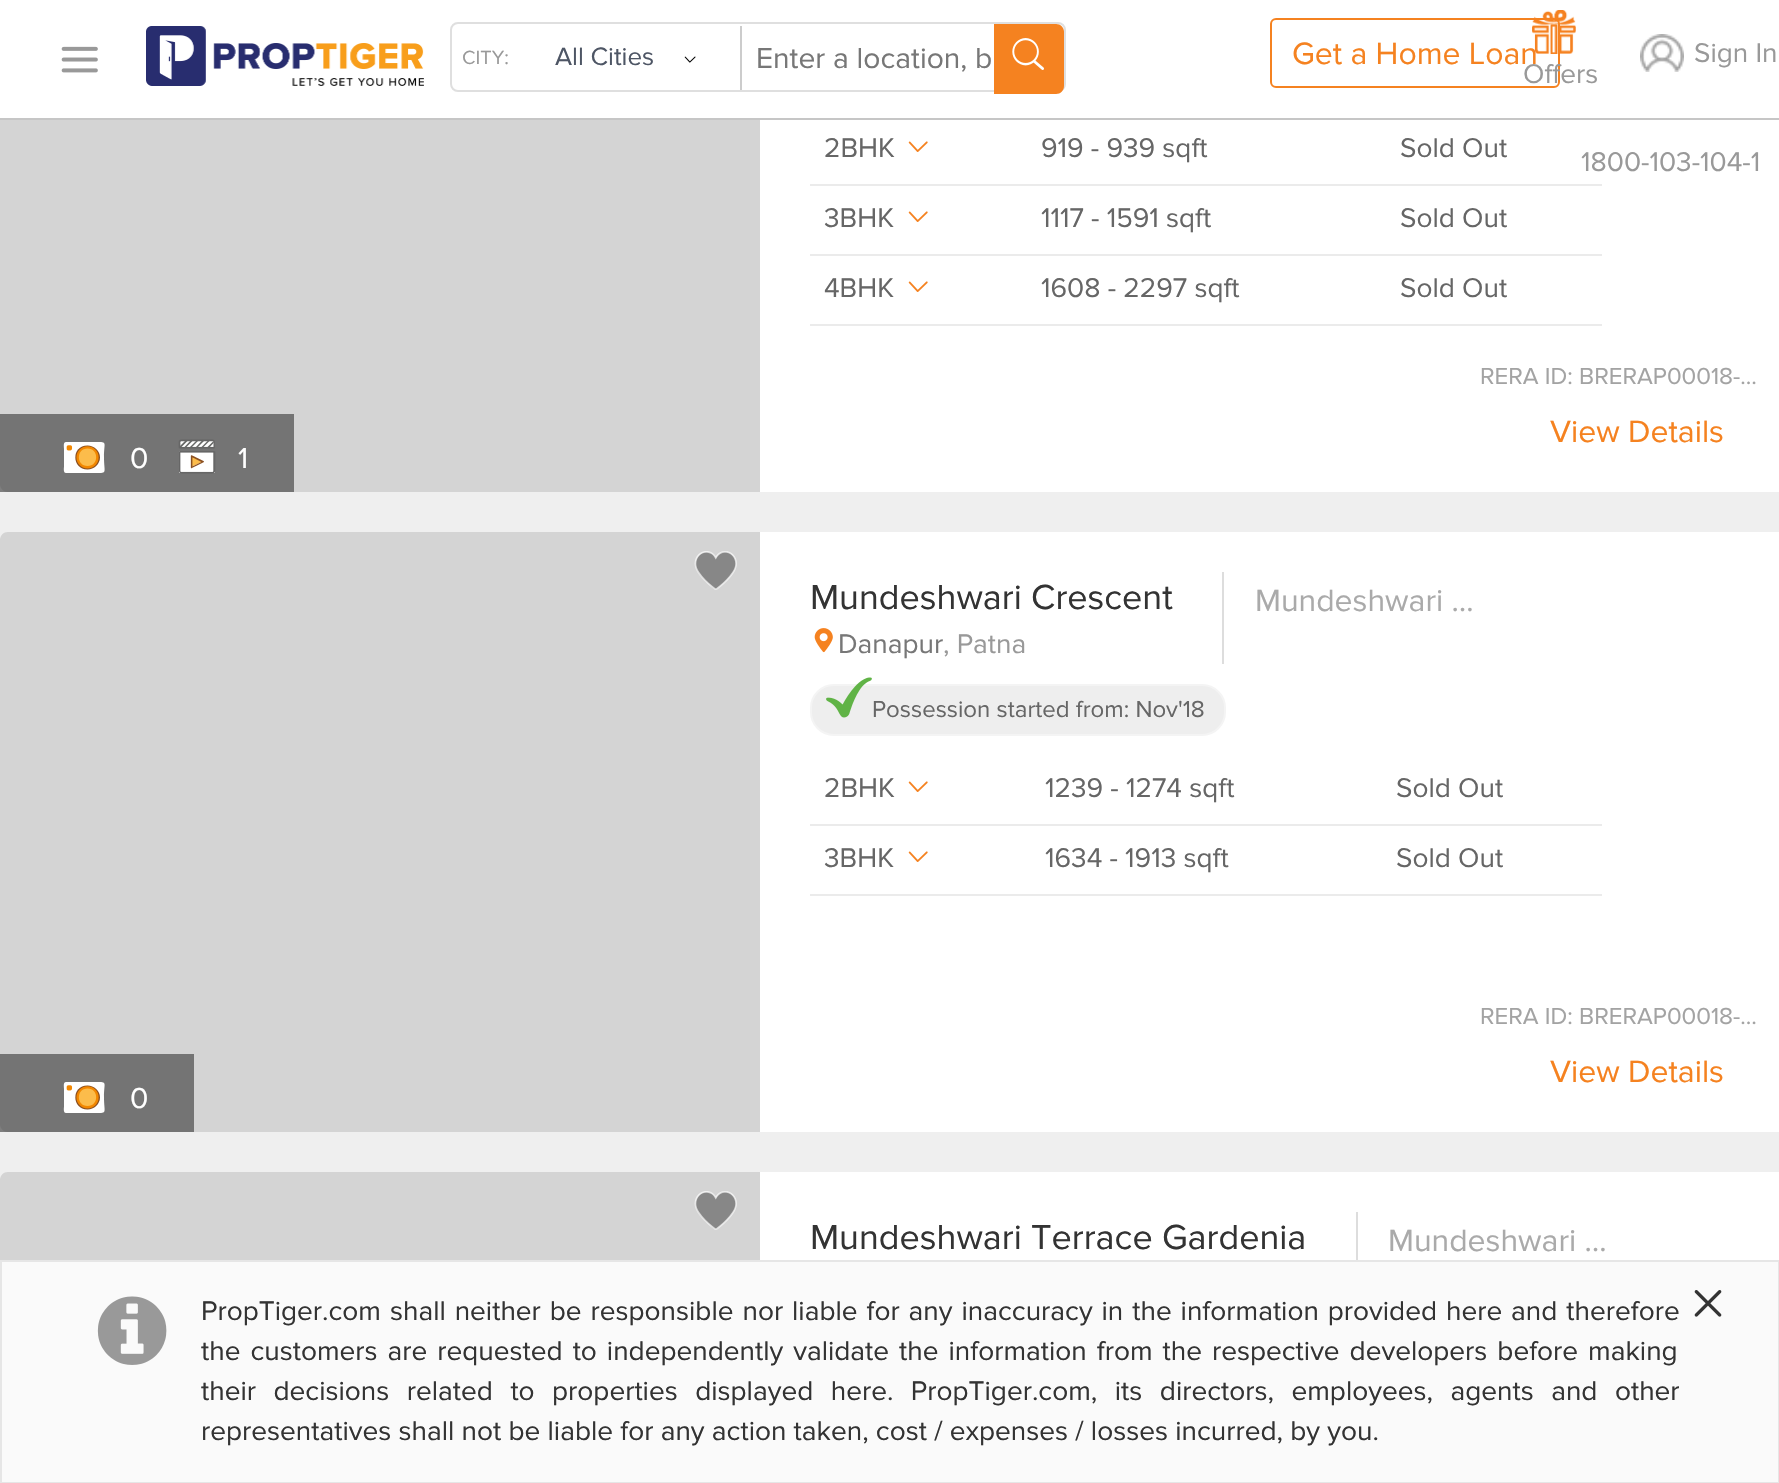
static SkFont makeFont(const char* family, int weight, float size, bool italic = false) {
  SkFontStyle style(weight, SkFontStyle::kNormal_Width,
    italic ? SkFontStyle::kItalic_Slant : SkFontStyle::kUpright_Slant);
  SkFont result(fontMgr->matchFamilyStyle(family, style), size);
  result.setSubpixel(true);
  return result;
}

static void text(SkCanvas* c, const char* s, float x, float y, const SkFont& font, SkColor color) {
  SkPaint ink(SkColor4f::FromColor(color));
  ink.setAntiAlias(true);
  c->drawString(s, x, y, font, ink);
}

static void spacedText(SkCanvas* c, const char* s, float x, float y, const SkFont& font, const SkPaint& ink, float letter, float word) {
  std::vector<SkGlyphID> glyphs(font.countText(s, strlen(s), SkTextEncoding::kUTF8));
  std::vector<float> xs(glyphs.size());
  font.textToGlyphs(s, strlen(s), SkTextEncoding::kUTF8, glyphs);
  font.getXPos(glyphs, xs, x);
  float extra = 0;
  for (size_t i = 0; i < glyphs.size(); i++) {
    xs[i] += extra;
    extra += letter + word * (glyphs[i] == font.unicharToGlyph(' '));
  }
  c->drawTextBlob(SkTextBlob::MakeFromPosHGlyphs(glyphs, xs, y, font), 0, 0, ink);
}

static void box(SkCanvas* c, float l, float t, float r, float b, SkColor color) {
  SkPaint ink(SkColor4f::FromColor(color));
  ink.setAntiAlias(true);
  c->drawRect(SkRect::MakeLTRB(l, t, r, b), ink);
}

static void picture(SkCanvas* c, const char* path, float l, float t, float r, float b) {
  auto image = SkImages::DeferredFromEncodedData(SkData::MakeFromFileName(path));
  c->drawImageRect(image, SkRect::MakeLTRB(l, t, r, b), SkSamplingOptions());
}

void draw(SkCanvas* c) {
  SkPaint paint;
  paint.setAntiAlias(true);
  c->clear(0xffefefef);
  paint.setColor(0xffd4d4d4);
  c->drawPath(SkPathBuilder().moveTo(8, -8).lineTo(760, -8).lineTo(760, 492).lineTo(8, 492).cubicTo(3.5f, 492, 0, 488.5f, 0, 484).lineTo(0, 0).cubicTo(0, -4.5f, 3.5f, -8, 8, -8).close().detach(), paint);
  box(c, 0, 0, 1779, 118, 0xffffffff);
  box(c, 0, 118, 1779, 120, 0xffc6c6c6);
  picture(c, "img_01.png", 61, 46, 98, 73);
  picture(c, "img_02.png", 146, 26, 424, 86);
  paint.setStyle(SkPaint::kStroke_Style);
  paint.setStrokeWidth(2);
  paint.setColor(0xffdfdfdf);
  c->drawRoundRect(SkRect::MakeLTRB(451, 23, 1065, 91), 7, 7, paint);
  SkFont face1 = makeFont("Proxima Nova", 400, 20);
  text(c, "CITY:", 462, 64, face1, 0xff999999);
  box(c, 740, 26, 742, 90, 0xffcccccc);
  SkFont face2 = makeFont("Proxima Nova", 400, 26);
  text(c, "All Cities", 555, 65, face2, 0xff4e5665);
  picture(c, "img_03.png", 684, 56, 696, 63);
  SkFont face3 = makeFont("Proxima Nova", 400, 30);
  text(c, "Enter a location, b", 756, 68, face3, 0xff777777);
  paint.setStyle(SkPaint::kFill_Style);
  paint.setColor(0xfff58220);
  c->drawPath(SkPathBuilder().moveTo(994, 24).lineTo(1056, 24).cubicTo(1060.5f, 24, 1064, 27.5f, 1064, 32).lineTo(1064, 86).cubicTo(1064, 90.5f, 1060.5f, 94, 1056, 94).lineTo(994, 94).close().detach(), paint);
  picture(c, "img_04.png", 1012, 38, 1044, 70);
  paint.setStyle(SkPaint::kStroke_Style);
  c->drawRoundRect(SkRect::MakeLTRB(1271, 19, 1559, 87), 5, 5, paint);
  SkFont face4 = makeFont("Proxima Nova", 400, 32);
  text(c, "Get a Home Loan", 1292, 64, face4, 0xfff58220);
  picture(c, "img_05.png", 1640, 34, 1684, 72);
  SkFont face5 = makeFont("Proxima Nova", 400, 28);
  text(c, "Sign In", 1694, 62, face5, 0xff999999);
  picture(c, "img_06.png", 1532, 10, 1576, 54);
  text(c, "Offers", 1523, 83, face5, 0xff999999);
  box(c, 760, 120, 1779, 492, 0xffffffff);
  text(c, "1800-103-104-1", 1581, 171, face5, 0xff999999);
  box(c, 810, 184, 1602, 186, 0xffebebeb);
  text(c, "2BHK", 824, 157, face5, 0xff666666);
  picture(c, "img_07.png", 908, 141, 928, 152);
  text(c, "919 - 939 sqft", 1041, 157, face5, 0xff666666);
  text(c, "Sold Out", 1400, 157, face5, 0xff666666);
  box(c, 810, 254, 1602, 256, 0xffebebeb);
  text(c, "3BHK", 824, 227, face5, 0xff666666);
  picture(c, "img_07.png", 908, 211, 928, 222);
  text(c, "1117 - 1591 sqft", 1041, 227, face5, 0xff666666);
  text(c, "Sold Out", 1400, 227, face5, 0xff666666);
  box(c, 810, 324, 1602, 326, 0xffebebeb);
  text(c, "4BHK", 824, 297, face5, 0xff666666);
  picture(c, "img_07.png", 908, 281, 928, 292);
  text(c, "1608 - 2297 sqft", 1041, 297, face5, 0xff666666);
  text(c, "Sold Out", 1400, 297, face5, 0xff666666);
  SkFont face6 = makeFont("Proxima Nova", 400, 24);
  text(c, "RERA ID: BRERAP00018-…", 1480, 384, face6, 0xffa3a3a3);
  text(c, "View Details", 1550, 442, face4, 0xfff58220);
  box(c, 0, 414, 294, 492, 0x99333333);
  paint.setStyle(SkPaint::kFill_Style);
  paint.setColor(0xffffffff);
  c->drawPath(SkPathBuilder().moveTo(214, 447.5f).lineTo(185.5f, 447.5f).cubicTo(178, 447.5f, 179.5f, 449.5f, 179.5f, 443).cubicTo(179.5f, 439, 183, 440.5f, 186.5f, 440.5f).lineTo(212.5f, 440.5f).cubicTo(215, 440.5f, 214, 446, 214, 447.5f).close().detach(), paint);
  picture(c, "img_08.png", 178, 439, 215, 449);
  paint.setColor(0xff666766);
  c->drawPath(SkPathBuilder().moveTo(179.5f, 446.5f).lineTo(186, 440).lineTo(187.5f, 441).lineTo(181, 447.5f).close().detach(), paint);
  c->drawPath(SkPathBuilder().moveTo(184.5f, 447).lineTo(191.5f, 439.5f).lineTo(192.5f, 441).lineTo(185.5f, 448).close().detach(), paint);
  c->drawPath(SkPathBuilder().moveTo(190, 447).lineTo(197, 440).lineTo(198, 441).lineTo(191, 448).close().detach(), paint);
  c->drawPath(SkPathBuilder().moveTo(196, 447).lineTo(203, 439.5f).lineTo(204, 441).lineTo(197, 448).close().detach(), paint);
  paint.setColor(0xffffffff);
  c->drawPath(SkPathBuilder().moveTo(66, 442).cubicTo(63, 442, 64, 446, 64, 449).lineTo(64, 466).cubicTo(64, 468, 63, 473, 66, 473).lineTo(96, 473).cubicTo(108, 473, 104, 473, 104, 457).cubicTo(104, 442, 108, 442, 96, 442).close().detach(), paint);
  paint.setColor(0xff666766);
  c->drawPath(SkPathBuilder().moveTo(201.5f, 447).lineTo(208.5f, 440).lineTo(209.5f, 441).lineTo(202.5f, 448).close().detach(), paint);
  c->drawPath(SkPathBuilder().moveTo(207, 447.5f).lineTo(213, 441.5f).lineTo(214, 442.5f).lineTo(208.5f, 448.5f).close().detach(), paint);
  picture(c, "img_09.png", 66, 445, 73, 451);
  paint.setColor(0xff8a4f21);
  c->drawPath(SkPathBuilder().moveTo(87.5f, 469.5f).cubicTo(71.5f, 469.5f, 71, 445.5f, 87.5f, 445.5f).cubicTo(94, 445.5f, 100, 450.5f, 100, 457.5f).cubicTo(100, 464, 94, 469.5f, 87.5f, 469.5f).close().detach(), paint);
  picture(c, "img_10.png", 76, 446, 99, 469);
  text(c, "0", 130, 468, face3, 0xffffffff);
  paint.setColor(0xfffcbc4b);
  c->drawPath(SkPathBuilder().moveTo(87.5f, 448.5f).cubicTo(76, 448.5f, 76, 466, 87.5f, 466).cubicTo(99, 466, 99, 448.5f, 87.5f, 448.5f).close().detach(), paint);
  box(c, 179, 451, 215, 473, 0xffffffff);
  text(c, "1", 238, 468, face3, 0xffffffff);
  picture(c, "img_11.png", 179, 451, 216, 474);
  c->drawPath(SkPathBuilder().moveTo(202, 462).lineTo(192, 466.5f).lineTo(192, 456).lineTo(202, 461).close().detach(), paint);
  picture(c, "img_12.png", 190, 455, 204, 469);
  box(c, 760, 532, 1779, 1132, 0xffffffff);
  box(c, 1222, 572, 1224, 664, 0xffdddddd);
  SkFont face7 = makeFont("Proxima Nova", 400, 36);
  text(c, "Mundeshwari Crescent", 810, 609, face7, 0xff333333);
  picture(c, "img_13.png", 814, 628, 833, 653);
  text(c, "Danapur", 838, 653, face5, 0xff777777);
  text(c, ", Patna", 943, 653, face5, 0xff999999);
  text(c, "Mundeshwari …", 1255, 611, face4, 0xffaaaaaa);
  paint.setColor(0xffeeeeee);
  c->drawRoundRect(SkRect::MakeLTRB(811, 685, 1225, 735), 23, 23, paint);
  paint.setStyle(SkPaint::kStroke_Style);
  paint.setColor(0xfff4f4f4);
  c->drawRoundRect(SkRect::MakeLTRB(811, 685, 1225, 735), 23, 23, paint);
  picture(c, "img_14.png", 826, 677, 872, 718);
  text(c, "Possession started from: Nov'18", 872, 717, face6, 0xff666666);
  box(c, 810, 824, 1602, 826, 0xffebebeb);
  text(c, "2BHK", 824, 797, face5, 0xff666666);
  picture(c, "img_07.png", 908, 781, 928, 792);
  text(c, "1239 - 1274 sqft", 1045, 797, face5, 0xff666666);
  text(c, "Sold Out", 1396, 797, face5, 0xff666666);
  box(c, 810, 894, 1602, 896, 0xffebebeb);
  text(c, "3BHK", 824, 867, face5, 0xff666666);
  picture(c, "img_07.png", 908, 851, 928, 862);
  text(c, "1634 - 1913 sqft", 1045, 867, face5, 0xff666666);
  text(c, "Sold Out", 1396, 867, face5, 0xff666666);
  text(c, "RERA ID: BRERAP00018-…", 1480, 1024, face6, 0xffa3a3a3);
  text(c, "View Details", 1550, 1082, face4, 0xfff58220);
  paint.setStyle(SkPaint::kFill_Style);
  paint.setColor(0xffd4d4d4);
  c->drawPath(SkPathBuilder().moveTo(8, 532).lineTo(760, 532).lineTo(760, 1132).lineTo(8, 1132).cubicTo(3.5f, 1132, 0, 1128.5f, 0, 1124).lineTo(0, 540).cubicTo(0, 535.5f, 3.5f, 532, 8, 532).close().detach(), paint);
  paint.setColor(0xff878787);
  c->drawPath(SkPathBuilder().moveTo(717, 589).cubicTo(714, 590, 710, 585, 709, 584).cubicTo(704, 580, 698, 574, 696, 568).cubicTo(692, 555, 709, 545, 716, 558).cubicTo(723, 544, 741, 556, 735, 569).cubicTo(731, 577, 724, 583, 717, 589).close().detach(), paint);
  picture(c, "img_15.png", 694, 551, 737, 590);
  box(c, 0, 1054, 194, 1132, 0x99333333);
  paint.setColor(0xffffffff);
  c->drawPath(SkPathBuilder().moveTo(66, 1082).cubicTo(63, 1082, 64, 1086, 64, 1089).lineTo(64, 1106).cubicTo(64, 1108, 63, 1113, 66, 1113).lineTo(96, 1113).cubicTo(108, 1113, 104, 1113, 104, 1097).cubicTo(104, 1082, 108, 1082, 96, 1082).close().detach(), paint);
  picture(c, "img_09.png", 66, 1085, 73, 1091);
  paint.setColor(0xff8a4f21);
  c->drawPath(SkPathBuilder().moveTo(87.5f, 1109.5f).cubicTo(71.5f, 1109.5f, 71, 1085.5f, 87.5f, 1085.5f).cubicTo(94, 1085.5f, 100, 1090.5f, 100, 1097.5f).cubicTo(100, 1104, 94, 1109.5f, 87.5f, 1109.5f).close().detach(), paint);
  picture(c, "img_10.png", 76, 1086, 99, 1109);
  text(c, "0", 130, 1108, face3, 0xffffffff);
  paint.setColor(0xfffcbc4b);
  c->drawPath(SkPathBuilder().moveTo(87.5f, 1088.5f).cubicTo(76, 1088.5f, 76, 1106, 87.5f, 1106).cubicTo(99, 1106, 99, 1088.5f, 87.5f, 1088.5f).close().detach(), paint);
  paint.setColor(0xffd4d4d4);
  c->drawPath(SkPathBuilder().moveTo(8, 1172).lineTo(760, 1172).lineTo(760, 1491).lineTo(8, 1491).cubicTo(3.5f, 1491, 0, 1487.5f, 0, 1483).lineTo(0, 1180).cubicTo(0, 1175.5f, 3.5f, 1172, 8, 1172).close().detach(), paint);
  paint.setColor(0xff878787);
  c->drawPath(SkPathBuilder().moveTo(717, 1229).cubicTo(714, 1230, 710, 1225, 709, 1224).cubicTo(704, 1220, 698, 1214, 696, 1208).cubicTo(692, 1195, 709, 1185, 716, 1198).cubicTo(723, 1184, 741, 1196, 735, 1209).cubicTo(731, 1217, 724, 1223, 717, 1229).close().detach(), paint);
  picture(c, "img_15.png", 694, 1191, 737, 1230);
  box(c, 760, 1172, 1779, 1260, 0xffffffff);
  box(c, 1356, 1212, 1358, 1260, 0xffdddddd);
  text(c, "Mundeshwari Terrace Gardenia", 810, 1249, face7, 0xff333333);
  text(c, "Mundeshwari …", 1388, 1251, face4, 0xffaaaaaa);
  paint.setColor(0xfffafafa);
  c->drawRect(SkRect::MakeLTRB(1, 1261, 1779, 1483), paint);
  paint.setStyle(SkPaint::kStroke_Style);
  paint.setColor(0xffe6e6e6);
  c->drawRect(SkRect::MakeLTRB(1, 1261, 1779, 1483), paint);
  picture(c, "img_16.png", 97, 1296, 167, 1365);
  paint.setStyle(SkPaint::kFill_Style);
  paint.setColor(0xff333333);
  spacedText(c, "PropTiger.com shall neither be responsible nor liable for any inaccuracy in the information provided here and therefore", 201, 1320, face5, paint, 0, 1.7f);
  spacedText(c, "the customers are requested to independently validate the information from the respective developers before making", 201, 1360, face5, paint, 0, 2.75f);
  spacedText(c, "their decisions related to properties displayed here. PropTiger.com, its directors, employees, agents and other", 201, 1400, face5, paint, 0, 10.25f);
  text(c, "representatives shall not be liable for any action taken, cost / expenses / losses incurred, by you.", 201, 1440, face5, 0xff333333);
  picture(c, "img_17.png", 1694, 1290, 1722, 1317);
}
